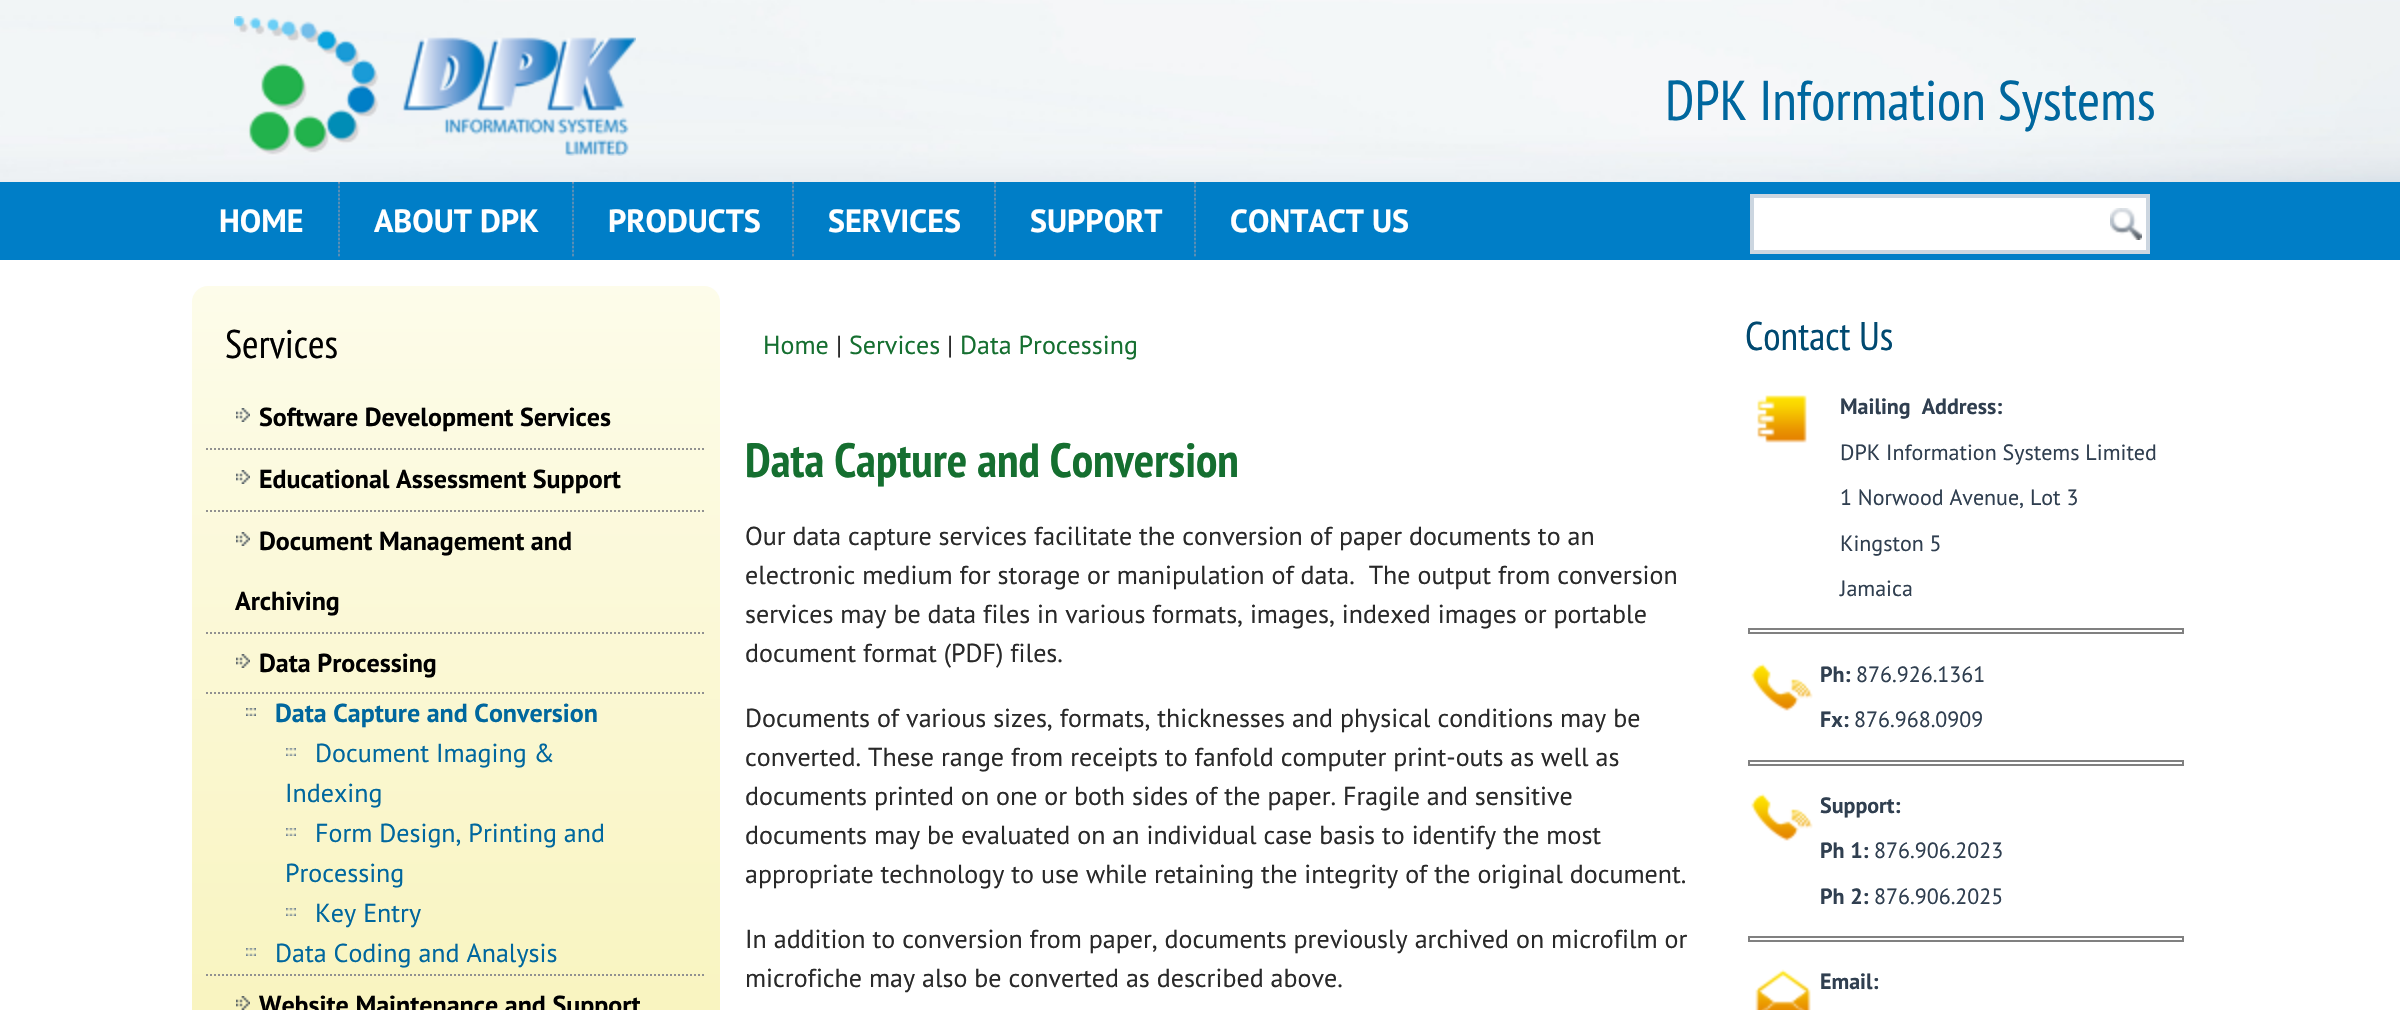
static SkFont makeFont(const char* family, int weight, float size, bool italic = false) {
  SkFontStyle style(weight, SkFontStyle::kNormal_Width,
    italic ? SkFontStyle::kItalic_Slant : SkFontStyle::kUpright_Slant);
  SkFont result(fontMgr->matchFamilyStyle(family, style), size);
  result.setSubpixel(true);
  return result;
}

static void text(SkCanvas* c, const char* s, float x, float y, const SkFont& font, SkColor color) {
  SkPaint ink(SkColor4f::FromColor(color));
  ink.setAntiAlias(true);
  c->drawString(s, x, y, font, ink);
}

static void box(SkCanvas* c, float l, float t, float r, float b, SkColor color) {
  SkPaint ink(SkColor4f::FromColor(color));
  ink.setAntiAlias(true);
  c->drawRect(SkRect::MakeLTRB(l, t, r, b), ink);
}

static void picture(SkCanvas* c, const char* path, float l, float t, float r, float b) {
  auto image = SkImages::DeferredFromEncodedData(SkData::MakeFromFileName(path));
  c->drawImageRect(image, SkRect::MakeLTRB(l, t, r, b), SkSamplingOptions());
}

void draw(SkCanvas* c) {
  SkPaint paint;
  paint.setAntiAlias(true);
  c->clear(0xffffffff);
  picture(c, "img_01.png", 0, 0, 2400, 182);
  picture(c, "img_02.png", 234, 16, 636, 156);
  SkFont face1 = makeFont("PT Sans Narrow", 400, 56);
  text(c, "DPK Information Systems", 1665, 120, face1, 0xff00679e);
  box(c, 0, 182, 2400, 260, 0xff007ec7);
  SkFont face2 = makeFont("PT Sans", 700, 32);
  text(c, "HOME", 219, 232, face2, 0xffffffff);
  picture(c, "img_03.png", 338, 182, 340, 257);
  text(c, "ABOUT DPK", 374, 232, face2, 0xffffffff);
  picture(c, "img_03.png", 572, 182, 574, 257);
  text(c, "PRODUCTS", 608, 232, face2, 0xffffffff);
  picture(c, "img_03.png", 792, 182, 794, 257);
  text(c, "SERVICES", 828, 232, face2, 0xffffffff);
  picture(c, "img_03.png", 994, 182, 996, 257);
  text(c, "SUPPORT", 1030, 232, face2, 0xffffffff);
  picture(c, "img_03.png", 1194, 182, 1196, 257);
  text(c, "CONTACT US", 1230, 232, face2, 0xffffffff);
  paint.setColor(0xffffffff);
  c->drawRect(SkRect::MakeLTRB(1752, 196, 2148, 252), paint);
  paint.setStyle(SkPaint::kStroke_Style);
  paint.setStrokeWidth(4);
  paint.setColor(0xffccd6e0);
  c->drawRect(SkRect::MakeLTRB(1752, 196, 2148, 252), paint);
  picture(c, "img_04.png", 2110, 208, 2142, 240);
  paint.setStyle(SkPaint::kFill_Style);
  {
    const SkColor colors[] = {0xfffdfcea, 0xfff8f3ba};
    const float stops[] = {0, 1};
    const SkPoint ends[] = {{456, 286}, {456, 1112}};
    paint.setShader(SkGradientShader::MakeLinear(ends, colors, stops, 2, SkTileMode::kClamp));
    paint.setAlpha(255);
  }
  c->drawRoundRect(SkRect::MakeLTRB(192, 286, 720, 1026), 16, 16, paint);
  SkFont face3 = makeFont("PT Sans Narrow", 400, 40);
  text(c, "Services", 225, 358, face3, 0xff000000);
  picture(c, "img_05.png", 236, 408, 250, 422);
  SkFont face4 = makeFont("PT Sans", 700, 26);
  text(c, "Software Development Services", 259, 426, face4, 0xff000000);
  paint.setStyle(SkPaint::kStroke_Style);
  paint.setStrokeWidth(2);
  paint.setShader(nullptr);
  paint.setColor(0xff919191);
  paint.setPathEffect(SkDashPathEffect::Make({{2, 2}}, 0));
  c->drawPath(SkPathBuilder().moveTo(206, 449).lineTo(706, 449).detach(), paint);
  paint.setPathEffect(nullptr);
  picture(c, "img_06.png", 236, 470, 250, 484);
  text(c, "Educational Assessment Support", 259, 488, face4, 0xff000000);
  paint.setPathEffect(SkDashPathEffect::Make({{2, 2}}, 0));
  c->drawPath(SkPathBuilder().moveTo(206, 511).lineTo(706, 511).detach(), paint);
  paint.setPathEffect(nullptr);
  picture(c, "img_07.png", 236, 532, 250, 546);
  text(c, "Document Management and", 259, 550, face4, 0xff000000);
  text(c, "Archiving", 235, 610, face4, 0xff000000);
  paint.setPathEffect(SkDashPathEffect::Make({{2, 2}}, 0));
  c->drawPath(SkPathBuilder().moveTo(206, 633).lineTo(706, 633).detach(), paint);
  paint.setPathEffect(nullptr);
  picture(c, "img_08.png", 236, 654, 250, 668);
  text(c, "Data Processing", 259, 672, face4, 0xff000000);
  paint.setPathEffect(SkDashPathEffect::Make({{2, 2}}, 0));
  c->drawPath(SkPathBuilder().moveTo(206, 693).lineTo(706, 693).detach(), paint);
  paint.setPathEffect(nullptr);
  picture(c, "img_09.png", 246, 708, 256, 716);
  text(c, "Data Capture and Conversion", 275, 722, face4, 0xff00679e);
  picture(c, "img_10.png", 286, 748, 296, 756);
  SkFont face5 = makeFont("PT Sans", 400, 26);
  text(c, "Document Imaging &", 315, 762, face5, 0xff00679e);
  text(c, "Indexing", 285, 802, face5, 0xff00679e);
  picture(c, "img_11.png", 286, 828, 296, 836);
  text(c, "Form Design, Printing and", 315, 842, face5, 0xff00679e);
  text(c, "Processing", 285, 882, face5, 0xff00679e);
  picture(c, "img_12.png", 286, 908, 296, 916);
  text(c, "Key Entry", 315, 922, face5, 0xff00679e);
  picture(c, "img_13.png", 246, 948, 256, 956);
  text(c, "Data Coding and Analysis", 275, 962, face5, 0xff00679e);
  paint.setPathEffect(SkDashPathEffect::Make({{2, 2}}, 0));
  c->drawPath(SkPathBuilder().moveTo(206, 975).lineTo(706, 975).detach(), paint);
  paint.setPathEffect(nullptr);
  picture(c, "img_14.png", 236, 996, 250, 1010);
  text(c, "Website Maintenance and Support", 259, 1014, face4, 0xff000000);
  text(c, "Home", 763, 354, face5, 0xff156f30);
  text(c, "|", 836, 354, face5, 0xff292929);
  text(c, "Services", 849, 354, face5, 0xff156f30);
  text(c, "|", 947, 354, face5, 0xff292929);
  text(c, "Data Processing", 960, 354, face5, 0xff156f30);
  SkFont face6 = makeFont("PT Sans Narrow", 700, 48);
  text(c, "Data Capture and Conversion", 745, 477, face6, 0xff156f30);
  text(c, "Our data capture services facilitate the conversion of paper documents to an", 745, 545, face5, 0xff292929);
  text(c, "electronic medium for storage or manipulation of data.  The output from conversion", 745, 584, face5, 0xff292929);
  text(c, "services may be data files in various formats, images, indexed images or portable", 745, 623, face5, 0xff292929);
  text(c, "document format (PDF) files.", 745, 662, face5, 0xff292929);
  text(c, "Documents of various sizes, formats, thicknesses and physical conditions may be", 745, 727, face5, 0xff292929);
  text(c, "converted. These range from receipts to fanfold computer print-outs as well as", 745, 766, face5, 0xff292929);
  text(c, "documents printed on one or both sides of the paper. Fragile and sensitive", 745, 805, face5, 0xff292929);
  text(c, "documents may be evaluated on an individual case basis to identify the most", 745, 844, face5, 0xff292929);
  text(c, "appropriate technology to use while retaining the integrity of the original document.", 745, 883, face5, 0xff292929);
  text(c, "In addition to conversion from paper, documents previously archived on microfilm or", 745, 948, face5, 0xff292929);
  text(c, "microfiche may also be converted as described above.", 745, 987, face5, 0xff292929);
  text(c, "Contact Us", 1745, 350, face3, 0xff004970);
  picture(c, "img_15.png", 1757, 395, 1807, 443);
  SkFont face7 = makeFont("PT Sans", 700, 22);
  text(c, "Mailing  Address:", 1840, 414, face7, 0xff303f50);
  SkFont face8 = makeFont("PT Sans", 400, 22);
  text(c, "DPK Information Systems Limited", 1840, 460, face8, 0xff303f50);
  text(c, "1 Norwood Avenue, Lot 3", 1840, 505, face8, 0xff303f50);
  text(c, "Kingston 5", 1840, 551, face8, 0xff303f50);
  text(c, "Jamaica", 1840, 596, face8, 0xff303f50);
  paint.setColor(0xff808080);
  c->drawRect(SkRect::MakeLTRB(1749, 629, 2183, 633), paint);
  picture(c, "img_16.png", 1751, 663, 1813, 711);
  text(c, "Ph:", 1820, 682, face7, 0xff303f50);
  text(c, "876.926.1361", 1856, 682, face8, 0xff303f50);
  text(c, "Fx:", 1820, 727, face7, 0xff303f50);
  text(c, "876.968.0909", 1854, 727, face8, 0xff303f50);
  c->drawRect(SkRect::MakeLTRB(1749, 761, 2183, 765), paint);
  picture(c, "img_16.png", 1751, 793, 1813, 841);
  text(c, "Support:", 1820, 813, face7, 0xff303f50);
  text(c, "Ph 1:", 1820, 858, face7, 0xff303f50);
  text(c, "876.906.2023", 1874, 858, face8, 0xff303f50);
  text(c, "Ph 2:", 1820, 904, face7, 0xff303f50);
  text(c, "876.906.2025", 1874, 904, face8, 0xff303f50);
  c->drawRect(SkRect::MakeLTRB(1749, 937, 2183, 941), paint);
  picture(c, "img_17.png", 1755, 969, 1811, 1010);
  text(c, "Email:", 1820, 989, face7, 0xff303f50);
}
